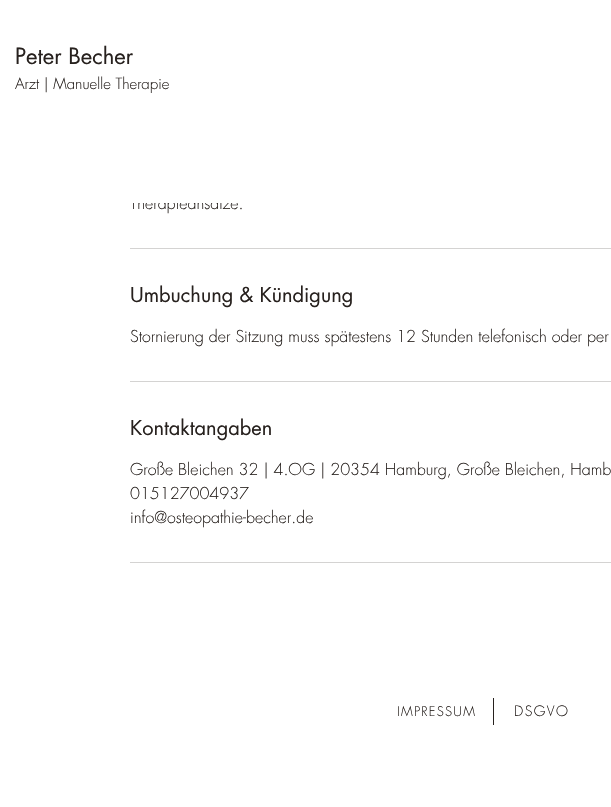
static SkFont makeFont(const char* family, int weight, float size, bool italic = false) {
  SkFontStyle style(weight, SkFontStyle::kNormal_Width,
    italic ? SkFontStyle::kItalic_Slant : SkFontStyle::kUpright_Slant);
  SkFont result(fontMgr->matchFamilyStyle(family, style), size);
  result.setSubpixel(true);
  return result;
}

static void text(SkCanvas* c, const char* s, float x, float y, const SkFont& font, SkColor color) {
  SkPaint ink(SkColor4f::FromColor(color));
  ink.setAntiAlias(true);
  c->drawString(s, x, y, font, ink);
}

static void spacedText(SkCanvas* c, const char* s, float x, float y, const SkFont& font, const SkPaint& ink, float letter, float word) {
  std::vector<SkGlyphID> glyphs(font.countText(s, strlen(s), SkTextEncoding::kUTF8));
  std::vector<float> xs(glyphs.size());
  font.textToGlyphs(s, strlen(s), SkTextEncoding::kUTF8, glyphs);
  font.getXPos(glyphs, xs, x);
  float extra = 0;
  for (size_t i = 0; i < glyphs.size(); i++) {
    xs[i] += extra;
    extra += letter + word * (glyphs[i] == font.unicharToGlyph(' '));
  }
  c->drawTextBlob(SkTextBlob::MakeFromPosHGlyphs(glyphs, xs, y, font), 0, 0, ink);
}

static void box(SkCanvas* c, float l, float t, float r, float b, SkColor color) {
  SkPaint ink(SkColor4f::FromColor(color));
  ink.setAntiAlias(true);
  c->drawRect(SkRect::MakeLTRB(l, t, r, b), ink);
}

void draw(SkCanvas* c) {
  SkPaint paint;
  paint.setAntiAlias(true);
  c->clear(0xffffffff);
  SkFont face1 = makeFont("futura", 400, 22);
  text(c, "Peter Becher", 15, 64, face1, 0xff27211e);
  SkFont face2 = makeFont("futura", 300, 15);
  text(c, "Arzt | Manuelle Therapie", 15, 89, face2, 0xff27211e);
  SkFont face3 = makeFont("futura", 300, 16);
  text(c, "Therapieansätze.", 130, 209, face3, 0xff27211e);
  box(c, 130, 195, 238, 203, 0xffffffff);
  box(c, 130, 248, 611, 249, 0xffd4d3d2);
  SkFont face4 = makeFont("futura", 400, 20);
  text(c, "Umbuchung & Kündigung", 130, 302, face4, 0xff27211e);
  text(c, "Stornierung der Sitzung muss spätestens 12 Stunden telefonisch oder per", 130, 342, face3, 0xff27211e);
  box(c, 130, 381, 611, 382, 0xffd4d3d2);
  text(c, "Kontaktangaben", 130, 435, face4, 0xff27211e);
  text(c, "Große Bleichen 32 | 4.OG | 20354 Hamburg, Große Bleichen, Hamb", 130, 475, face3, 0xff27211e);
  text(c, "015127004937", 130, 499, face3, 0xff27211e);
  text(c, "info@osteopathie-becher.de", 130, 523, face3, 0xff27211e);
  box(c, 130, 562, 611, 563, 0xffd4d3d2);
  SkFont face5 = makeFont("futura", 300, 13);
  paint.setColor(0xff27211e);
  spacedText(c, "IMPRESSUM", 397, 716, face5, paint, 1.25f, 0);
  box(c, 493, 698, 494, 725, 0xff27211e);
  SkFont face6 = makeFont("futura", 300, 14);
  spacedText(c, "DSGVO", 514, 716, face6, paint, 1.5f, 0);
}
